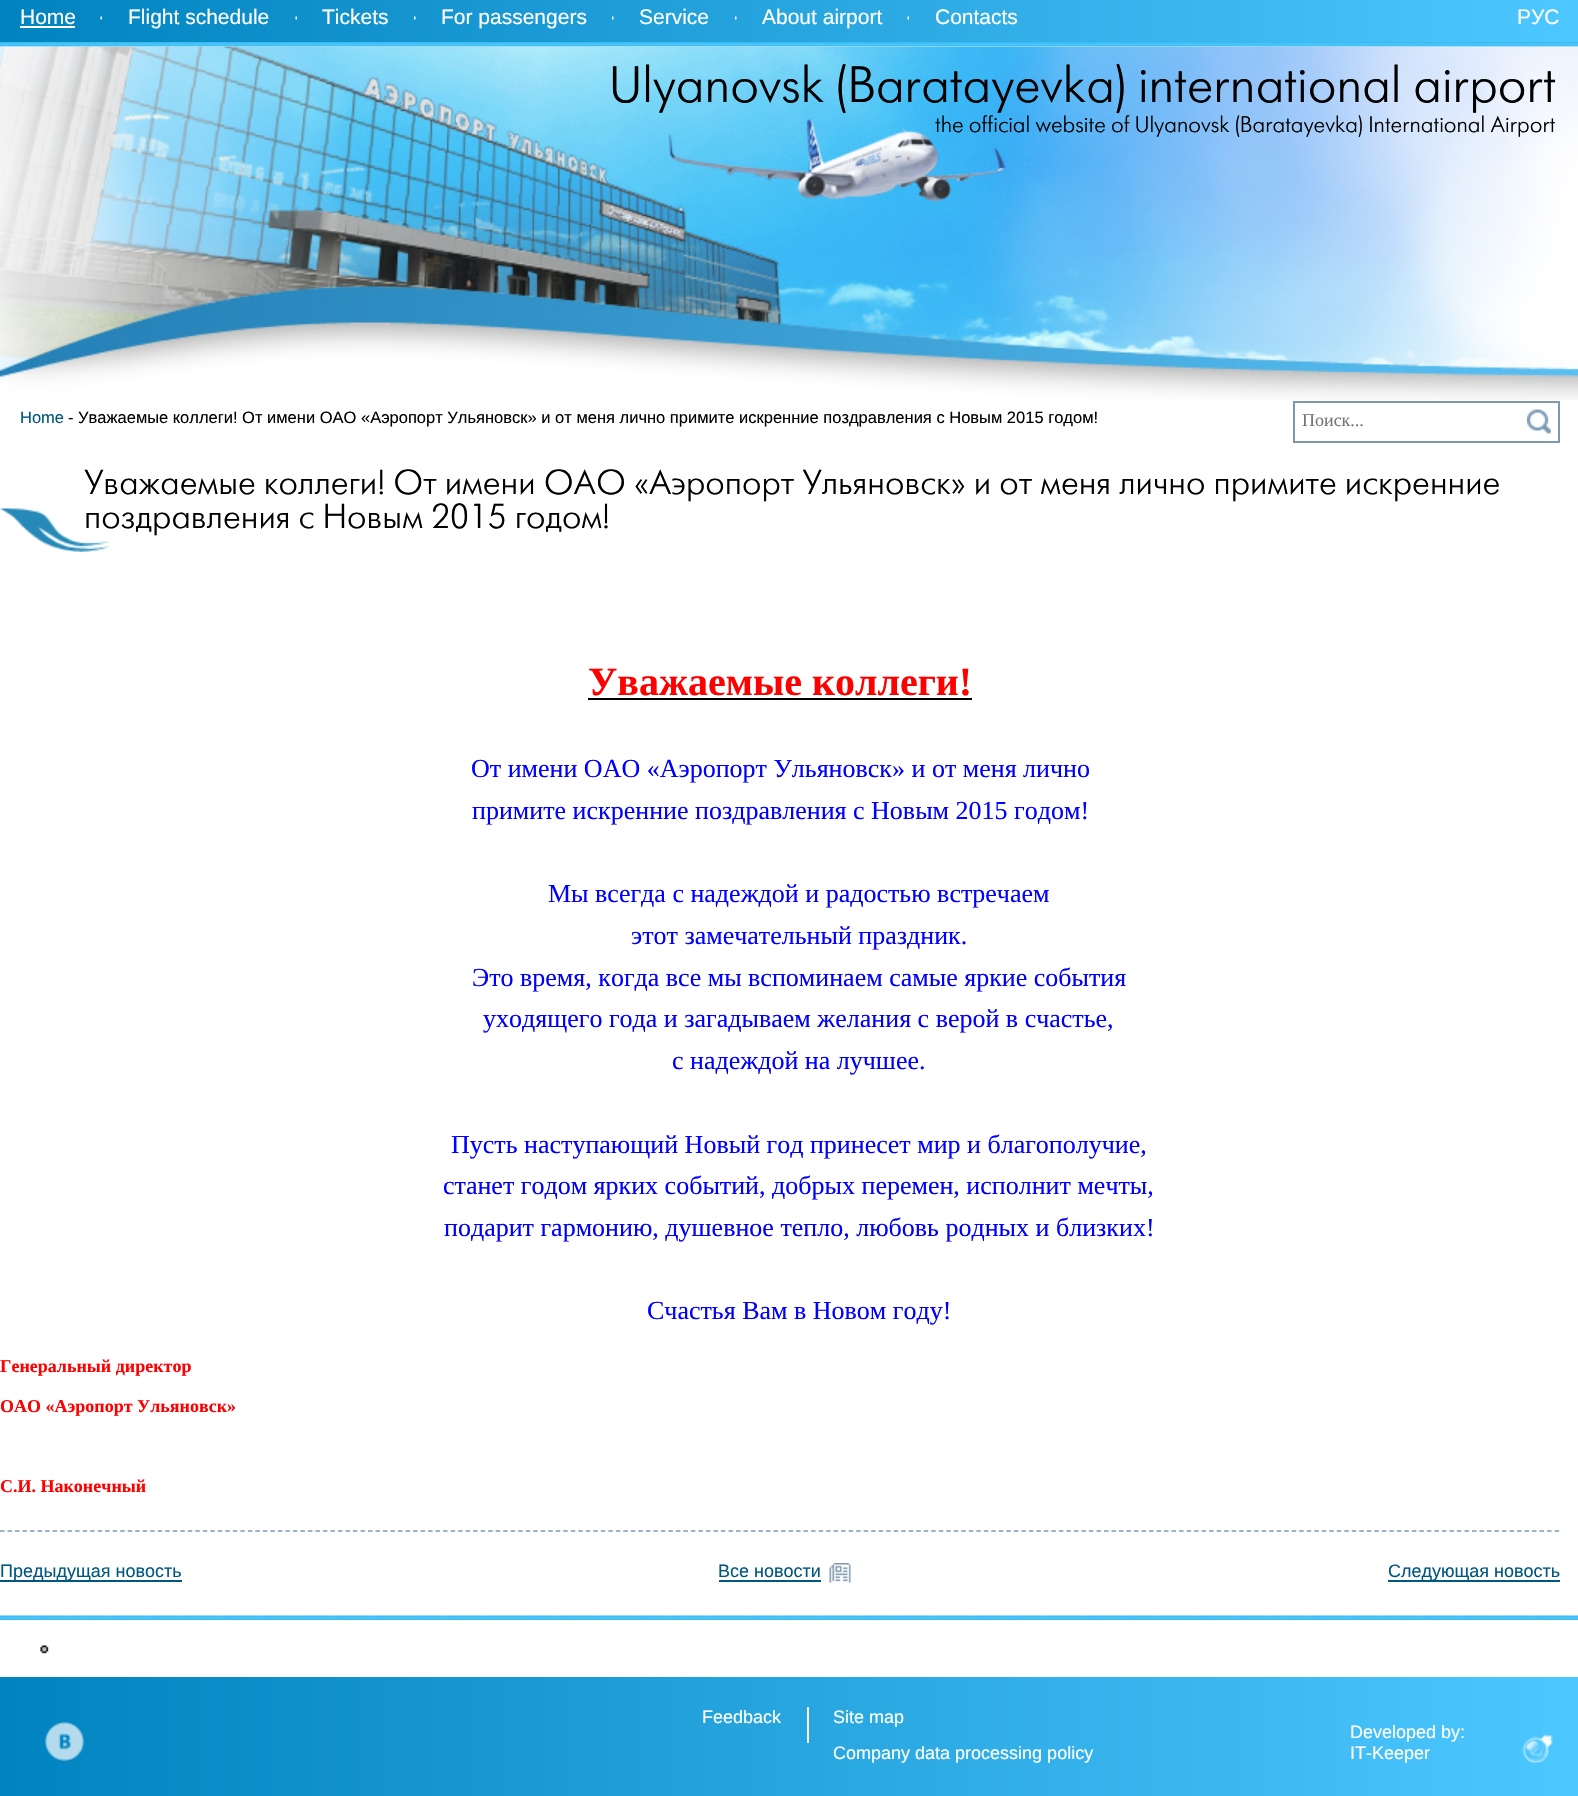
static SkFont makeFont(const char* family, int weight, float size, bool italic = false) {
  SkFontStyle style(weight, SkFontStyle::kNormal_Width,
    italic ? SkFontStyle::kItalic_Slant : SkFontStyle::kUpright_Slant);
  SkFont result(fontMgr->matchFamilyStyle(family, style), size);
  result.setSubpixel(true);
  return result;
}

static void text(SkCanvas* c, const char* s, float x, float y, const SkFont& font, SkColor color) {
  SkPaint ink(SkColor4f::FromColor(color));
  ink.setAntiAlias(true);
  c->drawString(s, x, y, font, ink);
}

static void box(SkCanvas* c, float l, float t, float r, float b, SkColor color) {
  SkPaint ink(SkColor4f::FromColor(color));
  ink.setAntiAlias(true);
  c->drawRect(SkRect::MakeLTRB(l, t, r, b), ink);
}

static void picture(SkCanvas* c, const char* path, float l, float t, float r, float b) {
  auto image = SkImages::DeferredFromEncodedData(SkData::MakeFromFileName(path));
  c->drawImageRect(image, SkRect::MakeLTRB(l, t, r, b), SkSamplingOptions());
}

void draw(SkCanvas* c) {
  SkPaint paint;
  paint.setAntiAlias(true);
  c->clear(0xffffffff);
  picture(c, "img_01.png", 0, 42, 1578, 47);
  {
    const SkColor colors[] = {0xff0083bf, 0xff4dc7ff};
    const float stops[] = {0, 1};
    const SkPoint ends[] = {{0, 20}, {1578, 19}};
    paint.setShader(SkGradientShader::MakeLinear(ends, colors, stops, 2, SkTileMode::kClamp));
    paint.setAlpha(255);
  }
  c->drawRect(SkRect::MakeLTRB(0, 0, 1578, 42), paint);
  SkFont face1 = makeFont("Liberation Sans", 400, 21);
  text(c, "Home", 20, 24, face1, 0xffffffff);
  box(c, 20, 26, 75, 28, 0xffffffff);
  picture(c, "img_02.png", 100, 16, 102, 20);
  text(c, "Flight schedule", 128, 24, face1, 0xffffffff);
  picture(c, "img_03.png", 295, 16, 297, 20);
  text(c, "Tickets", 322, 24, face1, 0xffffffff);
  picture(c, "img_04.png", 414, 16, 416, 20);
  text(c, "For passengers", 441, 24, face1, 0xffffffff);
  picture(c, "img_05.png", 612, 16, 614, 20);
  text(c, "Service", 639, 24, face1, 0xffffffff);
  picture(c, "img_06.png", 735, 16, 737, 20);
  text(c, "About airport", 762, 24, face1, 0xffffffff);
  picture(c, "img_07.png", 907, 16, 909, 20);
  text(c, "Contacts", 935, 24, face1, 0xffffffff);
  text(c, "РУC", 1517, 24, face1, 0xffffffff);
  picture(c, "img_08.png", 0, 46, 1578, 400);
  SkFont face2 = makeFont("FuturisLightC", 300, 51);
  text(c, "Ulyanovsk (Baratayevka) international airport", 609, 102, face2, 0xff000000);
  SkFont face3 = makeFont("FuturisLightC", 300, 22.5f);
  text(c, "the official website of Ulyanovsk (Baratayevka) International Airport", 935, 132, face3, 0xff000000);
  SkFont face4 = makeFont("Liberation Sans", 400, 16.5f);
  text(c, "Home", 20, 423, face4, 0xff005780);
  text(c, "- Уважаемые коллеги! От имени ОАО «Аэропорт Ульяновск» и от меня лично примите искренние поздравления с Новым 2015 годом!", 68, 423, face4, 0xff000000);
  paint.setStyle(SkPaint::kStroke_Style);
  paint.setStrokeWidth(2);
  paint.setShader(nullptr);
  paint.setColor(0xff7e98b0);
  c->drawRect(SkRect::MakeLTRB(1294, 402, 1559, 442), paint);
  SkFont face5 = makeFont("Liberation Serif", 400, 18);
  text(c, "Поиск...", 1302, 426, face5, 0xff757575);
  picture(c, "img_09.png", 1527, 409, 1551, 434);
  picture(c, "img_10.png", 0, 508, 110, 552);
  SkFont face6 = makeFont("FuturisLightC", 300, 34.5f);
  text(c, "Уважаемые коллеги! От имени ОАО «Аэропорт Ульяновск» и от меня лично примите искренние", 84, 494, face6, 0xff000000);
  text(c, "поздравления с Новым 2015 годом!", 84, 528, face6, 0xff000000);
  SkFont face7 = makeFont("Liberation Serif", 700, 40);
  text(c, "Уважаемые коллеги!", 588, 695, face7, 0xffff0000);
  box(c, 588, 698, 972, 700, 0xff000000);
  SkFont face8 = makeFont("Liberation Serif", 400, 26);
  text(c, "От имени ОАО «Аэропорт Ульяновск» и от меня лично", 471, 777, face8, 0xff0000ff);
  text(c, "примите искренние поздравления с Новым 2015 годом!", 472, 819, face8, 0xff0000ff);
  text(c, "Мы всегда с надеждой и радостью встречаем", 548, 902, face8, 0xff0000ff);
  text(c, "этот замечательный праздник.", 631, 944, face8, 0xff0000ff);
  text(c, "Это время, когда все мы вспоминаем самые яркие события", 472, 986, face8, 0xff0000ff);
  text(c, "уходящего года и загадываем желания с верой в счастье,", 483, 1027, face8, 0xff0000ff);
  text(c, "с надеждой на лучшее.", 672, 1069, face8, 0xff0000ff);
  text(c, "Пусть наступающий Новый год принесет мир и благополучие,", 451, 1153, face8, 0xff0000ff);
  text(c, "станет годом ярких событий, добрых перемен, исполнит мечты,", 443, 1194, face8, 0xff0000ff);
  text(c, "подарит гармонию, душевное тепло, любовь родных и близких!", 444, 1236, face8, 0xff0000ff);
  text(c, "Счастья Вам в Новом году!", 647, 1319, face8, 0xff0000ff);
  SkFont face9 = makeFont("Liberation Serif", 700, 18);
  text(c, "Генеральный директор", 0, 1372, face9, 0xffff0000);
  text(c, "ОАО «Аэропорт Ульяновск»", 0, 1412, face9, 0xffff0000);
  text(c, "С.И. Наконечный", 0, 1492, face9, 0xffff0000);
  paint.setStrokeWidth(1.5f);
  paint.setColor(0xff7c99b3);
  paint.setPathEffect(SkDashPathEffect::Make({{4.5f, 3.01f}}, 0));
  c->drawPath(SkPathBuilder().moveTo(0, 1531).lineTo(1560, 1531).detach(), paint);
  paint.setPathEffect(nullptr);
  box(c, 0, 1580, 182, 1582, 0xff005780);
  SkFont face10 = makeFont("Liberation Sans", 400, 18);
  text(c, "Предыдущая новость", 0, 1577, face10, 0xff005780);
  text(c, "Все новости", 718, 1577, face10, 0xff005780);
  box(c, 719, 1580, 821, 1582, 0xff005780);
  picture(c, "img_11.png", 829, 1563, 851, 1583);
  box(c, 1388, 1580, 1560, 1582, 0xff005780);
  text(c, "Следующая новость", 1388, 1577, face10, 0xff005780);
  picture(c, "img_12.png", 0, 1615, 1578, 1620);
  picture(c, "img_13.png", 40, 1645, 49, 1654);
  paint.setStyle(SkPaint::kFill_Style);
  {
    const SkColor colors[] = {0xff0083bf, 0xff4dc7ff};
    const float stops[] = {0, 1};
    const SkPoint ends[] = {{0, 1739}, {1578, 1739}};
    paint.setShader(SkGradientShader::MakeLinear(ends, colors, stops, 2, SkTileMode::kClamp));
    paint.setAlpha(255);
  }
  c->drawRect(SkRect::MakeLTRB(0, 1677, 1578, 1796), paint);
  picture(c, "img_14.png", 45, 1722, 84, 1761);
  box(c, 807, 1707, 809, 1743, 0xffffffff);
  text(c, "Feedback", 702, 1723, face10, 0xffffffff);
  text(c, "Site map", 833, 1723, face10, 0xffffffff);
  text(c, "Company data processing policy", 833, 1759, face10, 0xffffffff);
  picture(c, "img_15.png", 1522, 1735, 1553, 1763);
  text(c, "Developed by:", 1350, 1738, face10, 0xffffffff);
  text(c, "IT-Keeper", 1350, 1759, face10, 0xffffffff);
}
